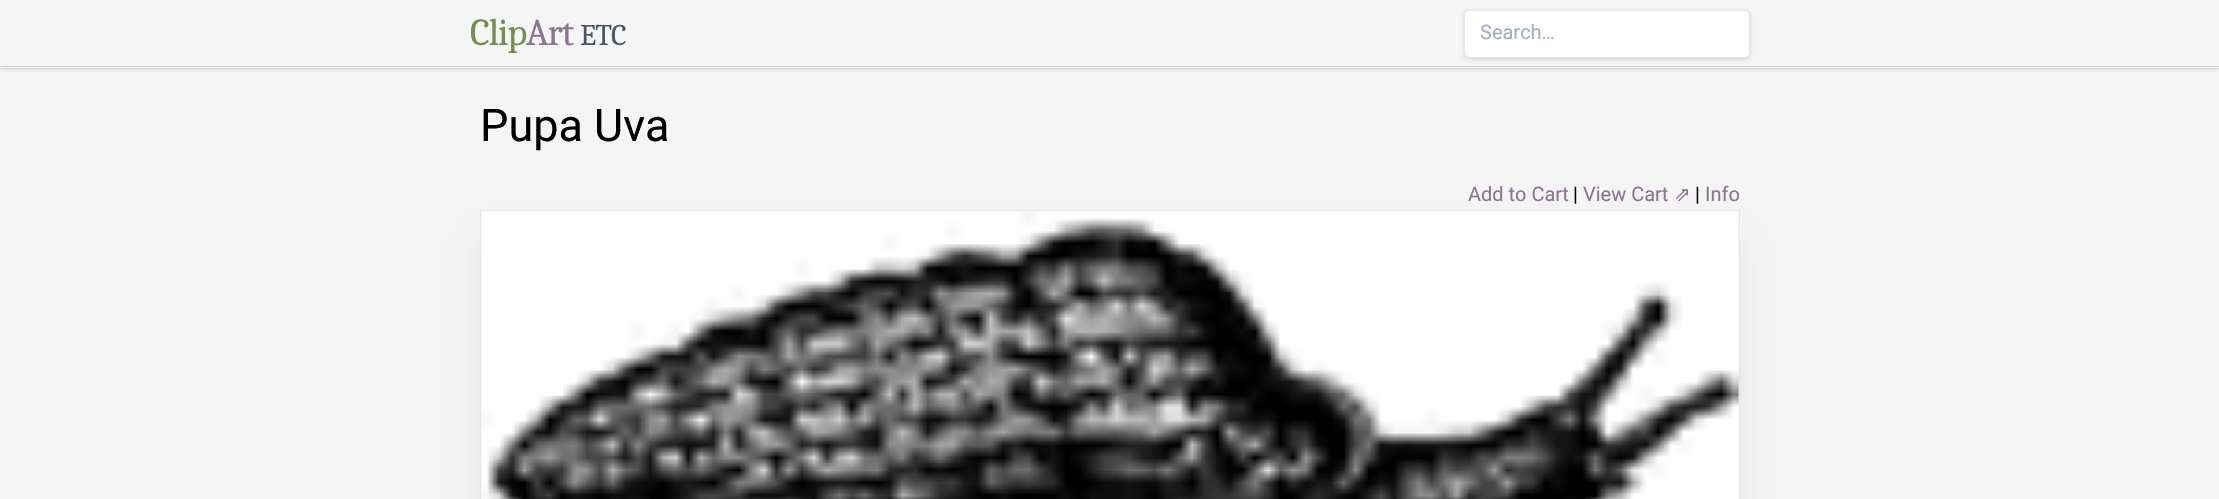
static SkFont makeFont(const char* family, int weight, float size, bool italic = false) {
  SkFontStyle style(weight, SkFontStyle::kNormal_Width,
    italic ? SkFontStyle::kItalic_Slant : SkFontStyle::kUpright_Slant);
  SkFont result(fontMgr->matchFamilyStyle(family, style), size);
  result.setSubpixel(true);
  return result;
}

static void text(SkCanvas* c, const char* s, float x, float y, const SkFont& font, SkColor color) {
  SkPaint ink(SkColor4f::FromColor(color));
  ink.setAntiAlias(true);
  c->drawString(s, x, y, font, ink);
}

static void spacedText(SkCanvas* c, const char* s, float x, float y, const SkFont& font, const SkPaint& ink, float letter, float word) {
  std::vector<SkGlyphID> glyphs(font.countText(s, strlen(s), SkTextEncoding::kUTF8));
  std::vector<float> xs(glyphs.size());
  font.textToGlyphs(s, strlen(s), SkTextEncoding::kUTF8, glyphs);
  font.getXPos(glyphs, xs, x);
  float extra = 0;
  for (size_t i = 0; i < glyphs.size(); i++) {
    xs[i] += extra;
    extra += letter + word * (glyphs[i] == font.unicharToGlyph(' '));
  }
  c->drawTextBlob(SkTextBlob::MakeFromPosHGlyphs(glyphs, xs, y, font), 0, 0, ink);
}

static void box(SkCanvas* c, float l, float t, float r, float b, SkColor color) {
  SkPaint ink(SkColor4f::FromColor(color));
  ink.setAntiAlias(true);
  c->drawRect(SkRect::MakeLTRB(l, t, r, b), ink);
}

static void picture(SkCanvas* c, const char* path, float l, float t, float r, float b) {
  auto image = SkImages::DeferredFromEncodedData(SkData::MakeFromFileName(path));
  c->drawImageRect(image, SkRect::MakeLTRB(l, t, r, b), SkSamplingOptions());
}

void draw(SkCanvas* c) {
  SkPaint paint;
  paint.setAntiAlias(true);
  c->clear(0xfff5f5f5);
  c->save();
  c->clipPath(SkPathBuilder(SkPathFillType::kEvenOdd).moveTo(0, 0).lineTo(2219, 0).lineTo(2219, 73).lineTo(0, 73).close().moveTo(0, 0).lineTo(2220, 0).lineTo(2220, 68).lineTo(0, 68).close().detach(), true);
  paint.setColor(0x0f000000);
  paint.setMaskFilter(SkMaskFilter::MakeBlur(kNormal_SkBlurStyle, 1));
  c->drawRect(SkRect::MakeLTRB(0, 1, 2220, 69), paint);
  paint.setMaskFilter(nullptr);
  c->restore();
  c->save();
  c->clipPath(SkPathBuilder(SkPathFillType::kEvenOdd).moveTo(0, 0).lineTo(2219, 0).lineTo(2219, 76).lineTo(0, 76).close().moveTo(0, 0).lineTo(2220, 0).lineTo(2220, 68).lineTo(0, 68).close().detach(), true);
  paint.setColor(0x1a000000);
  paint.setMaskFilter(SkMaskFilter::MakeBlur(kNormal_SkBlurStyle, 2));
  c->drawRect(SkRect::MakeLTRB(0, 1, 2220, 69), paint);
  paint.setMaskFilter(nullptr);
  c->restore();
  box(c, 0, 66, 2219, 67, 0xffdbc8e0);
  SkFont face1 = makeFont("Caladea", 400, 38);
  paint.setColor(0xff758d50);
  spacedText(c, "Clip", 470, 45, face1, paint, -1, 0);
  paint.setColor(0xff8d7493);
  spacedText(c, "Art", 526, 45, face1, paint, -1, 0);
  SkFont face2 = makeFont("Caladea", 400, 30);
  paint.setColor(0xff4a5568);
  spacedText(c, "ETC", 580, 45, face2, paint, -1, 0);
  paint.setColor(0x0f000000);
  paint.setMaskFilter(SkMaskFilter::MakeBlur(kNormal_SkBlurStyle, 1));
  c->drawRoundRect(SkRect::MakeLTRB(1464, 11, 1750, 59), 5, 5, paint);
  paint.setMaskFilter(nullptr);
  paint.setColor(0x1a000000);
  paint.setMaskFilter(SkMaskFilter::MakeBlur(kNormal_SkBlurStyle, 2));
  c->drawRoundRect(SkRect::MakeLTRB(1464, 11, 1750, 59), 5, 5, paint);
  paint.setMaskFilter(nullptr);
  paint.setColor(0xffffffff);
  c->drawRoundRect(SkRect::MakeLTRB(1464.5f, 10.5f, 1749.5f, 57.5f), 4.5f, 4.5f, paint);
  paint.setStyle(SkPaint::kStroke_Style);
  paint.setStrokeWidth(1);
  paint.setColor(0xffe2e8f0);
  c->drawRoundRect(SkRect::MakeLTRB(1464.5f, 10.5f, 1749.5f, 57.5f), 4.5f, 4.5f, paint);
  SkFont face3 = makeFont("Roboto", 400, 20);
  text(c, "Search…", 1480, 39, face3, 0xffa0aec0);
  SkFont face4 = makeFont("Roboto", 400, 45);
  text(c, "Pupa Uva", 480, 141, face4, 0xff000000);
  text(c, "Add to Cart", 1468, 201, face3, 0xff8d7493);
  text(c, "|", 1573, 201, face3, 0xff000000);
  text(c, "View Cart", 1583, 201, face3, 0xff8d7493);
  SkFont face5 = makeFont("DejaVu Sans", 400, 20);
  text(c, "⇗", 1674, 201, face5, 0xff8d7493);
  text(c, "|", 1695, 201, face3, 0xff000000);
  text(c, "Info", 1705, 201, face3, 0xff8d7493);
  paint.setStyle(SkPaint::kFill_Style);
  paint.setColor(0x1a000000);
  paint.setMaskFilter(SkMaskFilter::MakeBlur(kNormal_SkBlurStyle, 15.5f));
  c->drawRect(SkRect::MakeLTRB(486, 241, 1734, 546), paint);
  paint.setMaskFilter(nullptr);
  paint.setStyle(SkPaint::kStroke_Style);
  paint.setColor(0xffe2e8f0);
  c->drawRect(SkRect::MakeLTRB(480.5f, 210.5f, 1739.5f, 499.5f), paint);
  picture(c, "img_01.png", 481, 211, 1739, 499);
}
